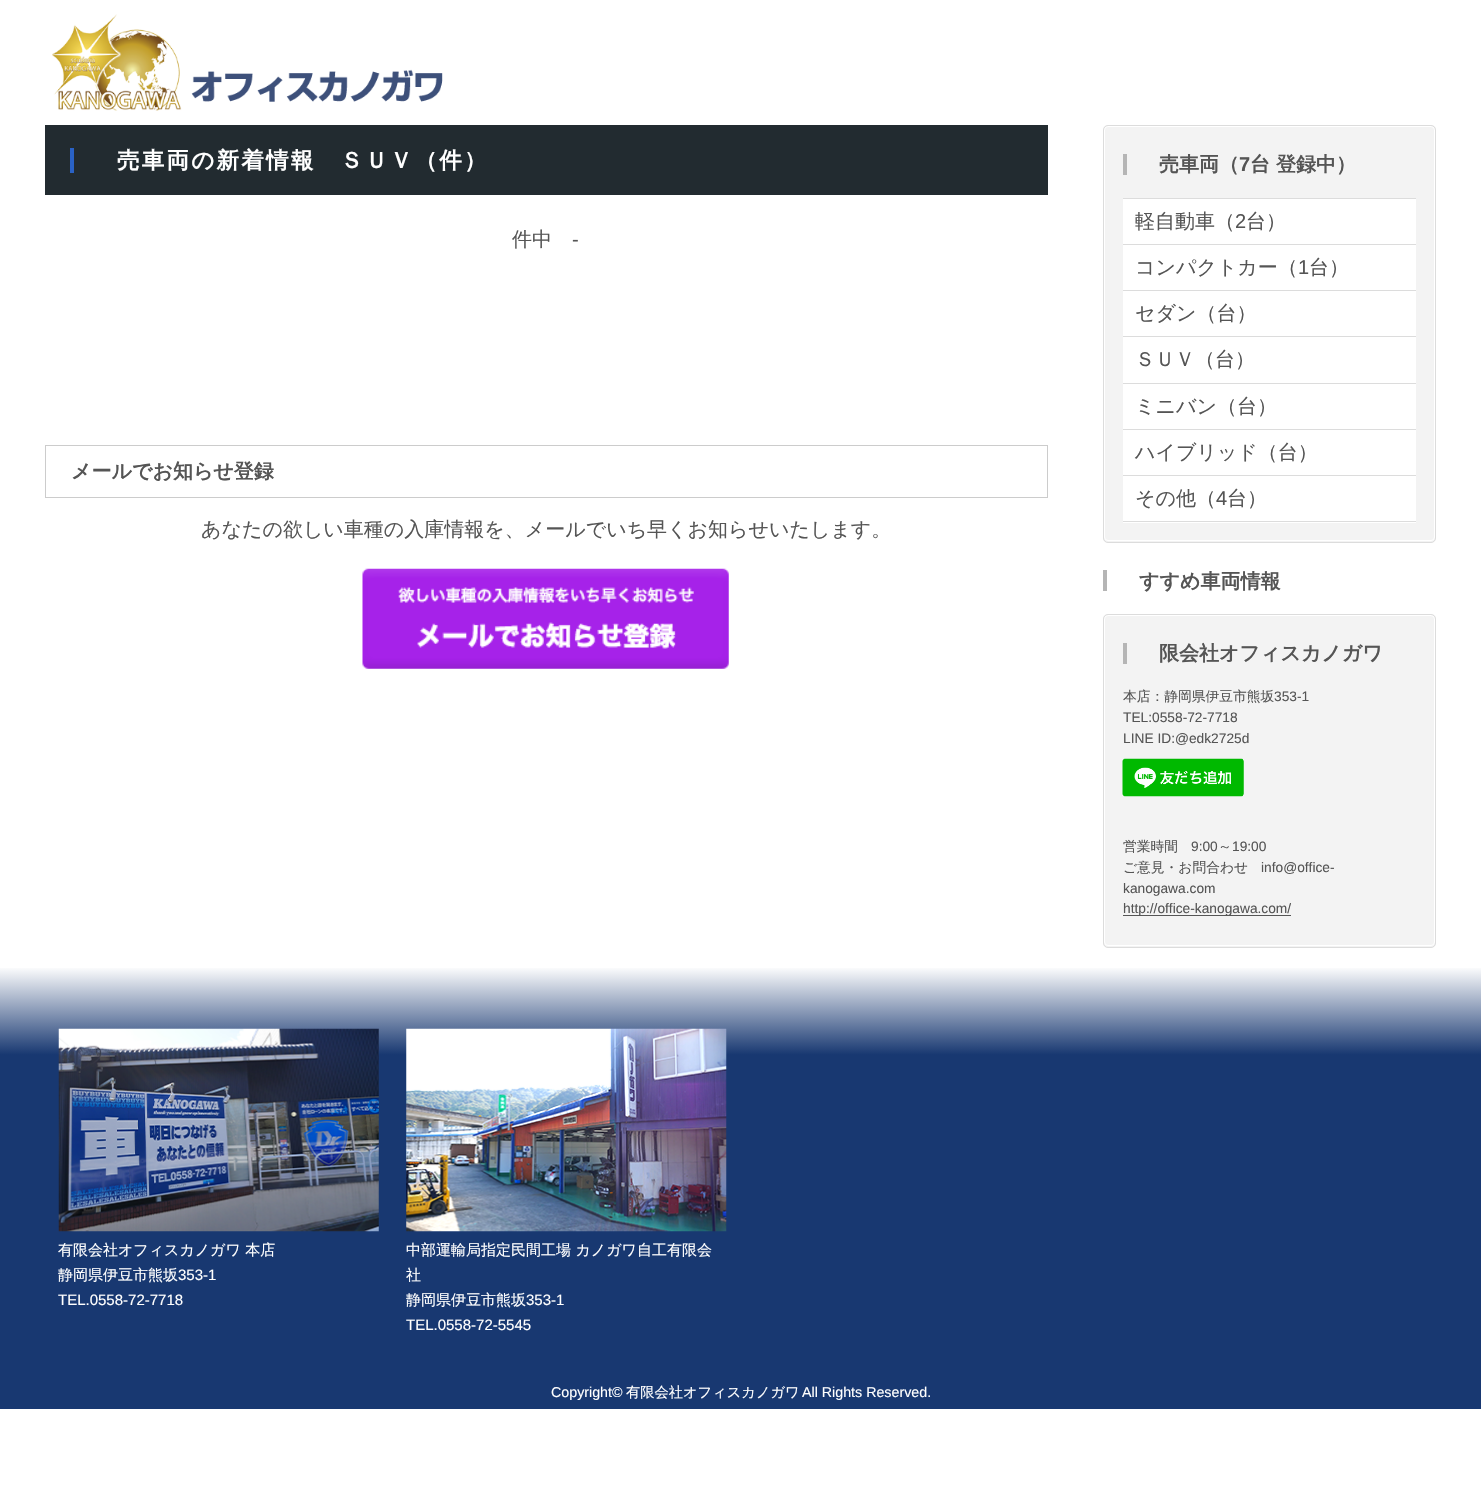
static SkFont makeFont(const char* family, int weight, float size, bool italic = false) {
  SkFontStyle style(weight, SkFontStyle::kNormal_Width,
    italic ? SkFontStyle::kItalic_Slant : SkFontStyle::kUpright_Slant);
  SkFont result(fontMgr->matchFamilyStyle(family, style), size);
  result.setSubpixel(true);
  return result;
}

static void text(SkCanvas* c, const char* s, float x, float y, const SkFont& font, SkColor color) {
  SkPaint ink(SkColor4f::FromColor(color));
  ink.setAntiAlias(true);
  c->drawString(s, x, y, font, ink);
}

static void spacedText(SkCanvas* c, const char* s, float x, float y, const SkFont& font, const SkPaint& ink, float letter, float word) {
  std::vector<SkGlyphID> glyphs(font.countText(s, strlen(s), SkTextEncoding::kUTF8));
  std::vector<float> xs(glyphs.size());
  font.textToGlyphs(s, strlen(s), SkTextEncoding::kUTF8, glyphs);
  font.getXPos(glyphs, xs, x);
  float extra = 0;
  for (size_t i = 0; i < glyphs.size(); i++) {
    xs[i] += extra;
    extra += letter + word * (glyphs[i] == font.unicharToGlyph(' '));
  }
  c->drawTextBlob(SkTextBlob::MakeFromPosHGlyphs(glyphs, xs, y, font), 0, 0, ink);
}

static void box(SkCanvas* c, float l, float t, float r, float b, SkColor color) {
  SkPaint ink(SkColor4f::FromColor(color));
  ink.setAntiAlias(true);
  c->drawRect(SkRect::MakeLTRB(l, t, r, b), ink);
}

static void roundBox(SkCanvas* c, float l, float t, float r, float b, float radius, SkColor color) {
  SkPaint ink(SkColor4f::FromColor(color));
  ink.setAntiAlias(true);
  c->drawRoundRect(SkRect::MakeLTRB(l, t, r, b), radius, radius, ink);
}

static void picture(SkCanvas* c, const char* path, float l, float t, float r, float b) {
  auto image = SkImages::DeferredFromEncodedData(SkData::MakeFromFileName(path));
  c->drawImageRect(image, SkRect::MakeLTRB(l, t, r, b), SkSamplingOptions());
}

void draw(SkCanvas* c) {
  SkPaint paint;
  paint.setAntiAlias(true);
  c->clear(0xffffffff);
  picture(c, "img_01.png", 52, 14, 443, 111);
  box(c, 45, 125, 1048, 195, 0xff222b30);
  SkFont face1 = makeFont("Noto Sans", 100, 22.5f);
  paint.setColor(0xffffffff);
  spacedText(c, "販", 92, 168, face1, paint, 2.25f, 0);
  box(c, 70, 148, 74, 173, 0xff2a62c5);
  SkFont face2 = makeFont("WenQuanYi Zen Hei", 700, 22.5f);
  spacedText(c, "売車両の新着情報　ＳＵＶ（件）", 117, 168, face2, paint, 2.25f, 0);
  SkFont face3 = makeFont("WenQuanYi Zen Hei", 500, 20);
  text(c, "件中", 512, 246, face3, 0xff555555);
  SkFont face4 = makeFont("Liberation Sans", 400, 20);
  text(c, "-", 572, 246, face4, 0xff555555);
  paint.setStyle(SkPaint::kStroke_Style);
  paint.setStrokeWidth(1);
  paint.setColor(0xffcccccc);
  c->drawRect(SkRect::MakeLTRB(45.5f, 445.5f, 1047.5f, 497.5f), paint);
  SkFont face5 = makeFont("WenQuanYi Zen Hei", 700, 20);
  text(c, "メールでお知らせ登録", 71, 478, face5, 0xff555555);
  text(c, "あなたの欲しい車種の入庫情報を、メールでいち早くお知らせいたします。", 201, 536, face3, 0xff555555);
  picture(c, "img_02.png", 362, 568, 729, 669);
  roundBox(c, 1103, 125, 1436, 543, 5, 0xfff3f3f3);
  paint.setColor(0xffffffff);
  c->drawRoundRect(SkRect::MakeLTRB(1104.5f, 126.5f, 1434.5f, 540.5f), 3.5f, 3.5f, paint);
  paint.setColor(0xffdcdcdc);
  c->drawRoundRect(SkRect::MakeLTRB(1103.5f, 125.5f, 1435.5f, 542.5f), 4.5f, 4.5f, paint);
  SkFont face6 = makeFont("Noto Sans", 100, 20);
  text(c, "販", 1139, 171, face6, 0xff555555);
  box(c, 1123, 154, 1127, 175, 0xffb5b5b5);
  text(c, "売車両（", 1159, 171, face5, 0xff555555);
  SkFont face7 = makeFont("Liberation Sans", 700, 20);
  text(c, "7", 1239, 171, face7, 0xff555555);
  text(c, "台 登録中）", 1250, 171, face5, 0xff555555);
  box(c, 1123, 198, 1416, 199, 0xffdcdcdc);
  box(c, 1123, 199, 1416, 244, 0xffffffff);
  box(c, 1123, 244, 1416, 245, 0xffdcdcdc);
  text(c, "軽自動車（", 1135, 228, face3, 0xff555555);
  text(c, "2", 1235, 228, face4, 0xff555555);
  text(c, "台）", 1246, 228, face3, 0xff555555);
  box(c, 1123, 245, 1416, 290, 0xffffffff);
  box(c, 1123, 290, 1416, 291, 0xffdcdcdc);
  text(c, "コンパクトカー（", 1135, 274, face3, 0xff555555);
  text(c, "1", 1298, 274, face4, 0xff555555);
  text(c, "台）", 1309, 274, face3, 0xff555555);
  box(c, 1123, 291, 1416, 383, 0xffffffff);
  box(c, 1123, 336, 1416, 337, 0xffdcdcdc);
  text(c, "セダン（台）", 1135, 320, face3, 0xff555555);
  box(c, 1123, 383, 1416, 384, 0xffdcdcdc);
  text(c, "ＳＵＶ（台）", 1135, 366, face3, 0xff555555);
  box(c, 1123, 384, 1416, 429, 0xffffffff);
  box(c, 1123, 429, 1416, 430, 0xffdcdcdc);
  text(c, "ミニバン（台）", 1135, 413, face3, 0xff555555);
  box(c, 1123, 430, 1416, 475, 0xffffffff);
  box(c, 1123, 475, 1416, 476, 0xffdcdcdc);
  text(c, "ハイブリッド（台）", 1135, 459, face3, 0xff555555);
  box(c, 1123, 476, 1416, 523, 0xffffffff);
  box(c, 1123, 521, 1416, 522, 0xffdcdcdc);
  text(c, "その他（", 1135, 505, face3, 0xff555555);
  text(c, "4", 1216, 505, face4, 0xff555555);
  text(c, "台）", 1227, 505, face3, 0xff555555);
  text(c, "お", 1119, 588, face6, 0xff555555);
  box(c, 1103, 570, 1107, 591, 0xffb5b5b5);
  text(c, "すすめ車両情報", 1139, 588, face5, 0xff555555);
  roundBox(c, 1103, 614, 1436, 948, 5, 0xfff3f3f3);
  paint.setColor(0xffffffff);
  c->drawRoundRect(SkRect::MakeLTRB(1104.5f, 615.5f, 1434.5f, 945.5f), 3.5f, 3.5f, paint);
  paint.setColor(0xffdcdcdc);
  c->drawRoundRect(SkRect::MakeLTRB(1103.5f, 614.5f, 1435.5f, 947.5f), 4.5f, 4.5f, paint);
  text(c, "有", 1139, 660, face6, 0xff555555);
  box(c, 1123, 643, 1127, 664, 0xffb5b5b5);
  text(c, "限会社オフィスカノガワ", 1159, 660, face5, 0xff555555);
  SkFont face8 = makeFont("WenQuanYi Zen Hei", 500, 13.75f);
  text(c, "本店：静岡県伊豆市熊坂", 1123, 701, face8, 0xff555555);
  SkFont face9 = makeFont("Liberation Sans", 400, 13.75f);
  text(c, "353-1", 1274, 701, face9, 0xff555555);
  text(c, "TEL:0558-72-7718", 1123, 722, face9, 0xff555555);
  text(c, "LINE ID:@edk2725d", 1123, 743, face9, 0xff555555);
  picture(c, "img_03.png", 1122, 758, 1244, 797);
  text(c, "営業時間", 1123, 851, face8, 0xff555555);
  text(c, "9:00", 1191, 851, face9, 0xff555555);
  text(c, "～", 1218, 851, face8, 0xff555555);
  text(c, "19:00", 1232, 851, face9, 0xff555555);
  text(c, "ご意見・お問合わせ", 1123, 872, face8, 0xff555555);
  text(c, "info@office-", 1261, 872, face9, 0xff555555);
  text(c, "kanogawa.com", 1123, 893, face9, 0xff555555);
  box(c, 1123, 915, 1291, 916, 0xff555555);
  text(c, "http://office-kanogawa.com/", 1123, 913, face9, 0xff555555);
  picture(c, "img_04.png", 0, 968, 1481, 1375);
  picture(c, "img_05.png", 58, 1028, 379, 1232);
  SkFont face10 = makeFont("WenQuanYi Zen Hei", 500, 15);
  text(c, "有限会社オフィスカノガワ 本店", 58, 1255, face10, 0xffffffff);
  text(c, "静岡県伊豆市熊坂", 58, 1280, face10, 0xffffffff);
  SkFont face11 = makeFont("Liberation Sans", 400, 15);
  text(c, "353-1", 178, 1280, face11, 0xffffffff);
  text(c, "TEL.0558-72-7718", 58, 1305, face11, 0xffffffff);
  picture(c, "img_06.png", 406, 1028, 727, 1232);
  text(c, "中部運輸局指定民間工場 カノガワ自工有限会", 406, 1255, face10, 0xffffffff);
  text(c, "社", 406, 1280, face10, 0xffffffff);
  text(c, "静岡県伊豆市熊坂", 406, 1305, face10, 0xffffffff);
  text(c, "353-1", 526, 1305, face11, 0xffffffff);
  text(c, "TEL.0558-72-5545", 406, 1330, face11, 0xffffffff);
  box(c, 0, 1375, 1481, 1409, 0xff183871);
  SkFont face12 = makeFont("Liberation Sans", 400, 14.25f);
  text(c, "Copyright©", 551, 1397, face12, 0xffffffff);
  SkFont face13 = makeFont("WenQuanYi Zen Hei", 500, 14.25f);
  text(c, "有限会社オフィスカノガワ", 626, 1397, face13, 0xffffffff);
  text(c, "All Rights Reserved.", 802, 1397, face12, 0xffffffff);
}
